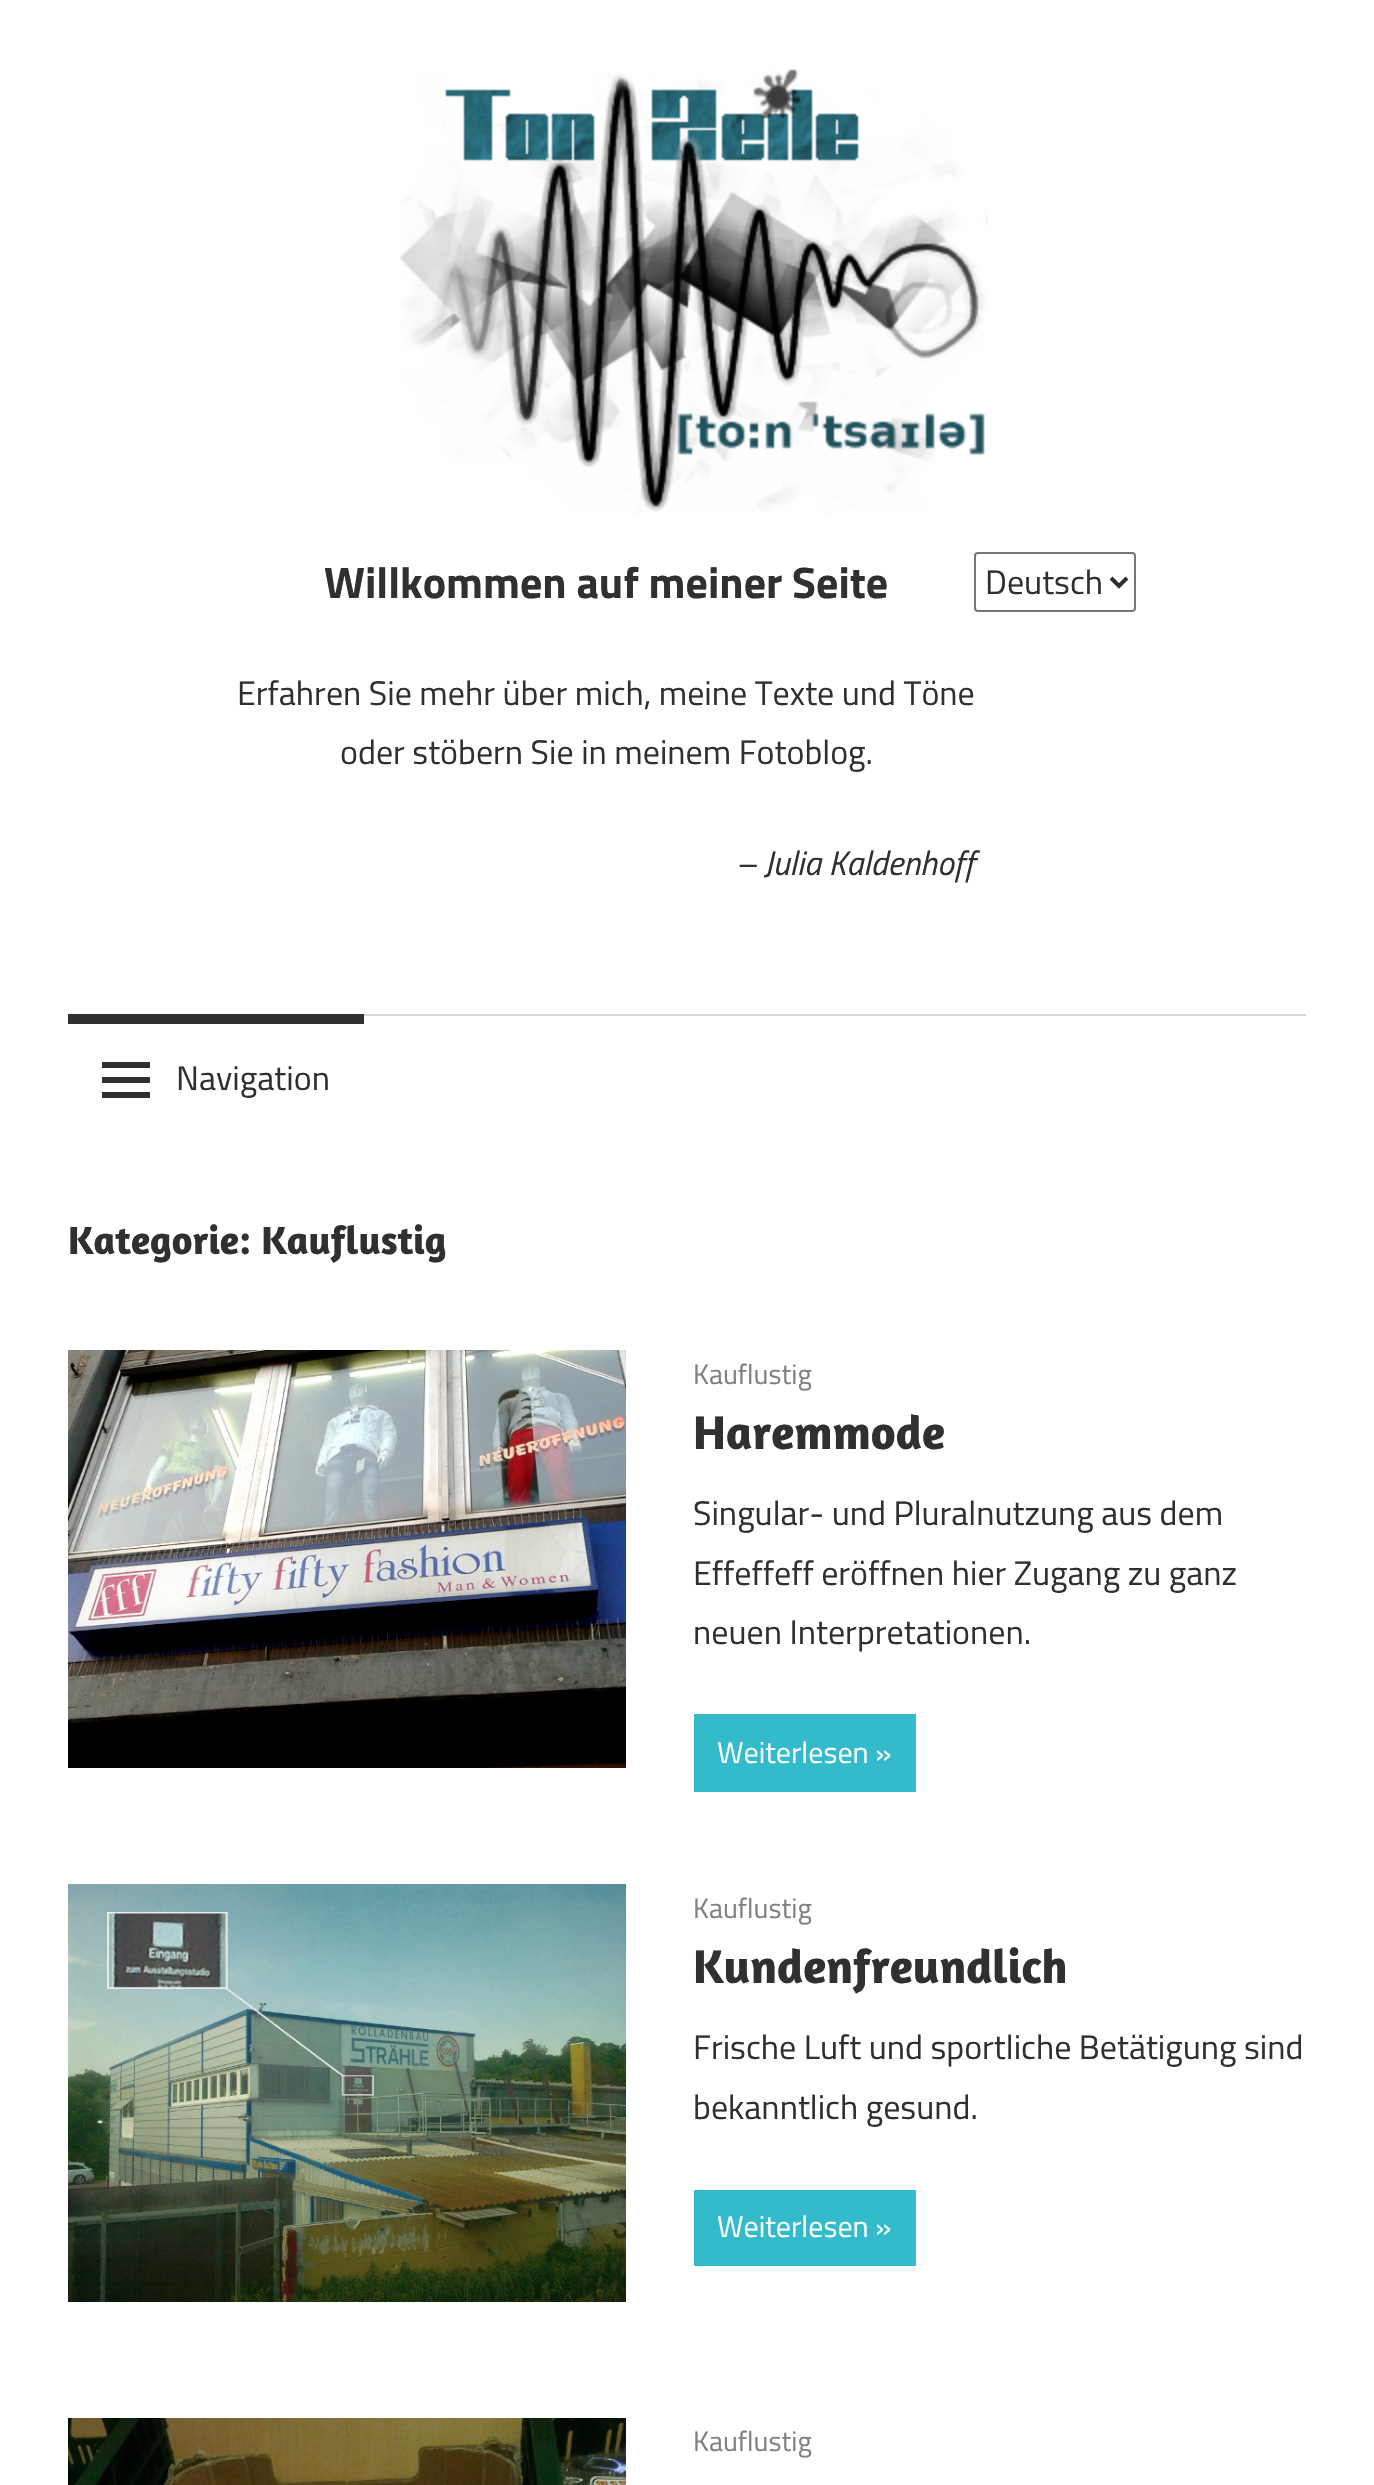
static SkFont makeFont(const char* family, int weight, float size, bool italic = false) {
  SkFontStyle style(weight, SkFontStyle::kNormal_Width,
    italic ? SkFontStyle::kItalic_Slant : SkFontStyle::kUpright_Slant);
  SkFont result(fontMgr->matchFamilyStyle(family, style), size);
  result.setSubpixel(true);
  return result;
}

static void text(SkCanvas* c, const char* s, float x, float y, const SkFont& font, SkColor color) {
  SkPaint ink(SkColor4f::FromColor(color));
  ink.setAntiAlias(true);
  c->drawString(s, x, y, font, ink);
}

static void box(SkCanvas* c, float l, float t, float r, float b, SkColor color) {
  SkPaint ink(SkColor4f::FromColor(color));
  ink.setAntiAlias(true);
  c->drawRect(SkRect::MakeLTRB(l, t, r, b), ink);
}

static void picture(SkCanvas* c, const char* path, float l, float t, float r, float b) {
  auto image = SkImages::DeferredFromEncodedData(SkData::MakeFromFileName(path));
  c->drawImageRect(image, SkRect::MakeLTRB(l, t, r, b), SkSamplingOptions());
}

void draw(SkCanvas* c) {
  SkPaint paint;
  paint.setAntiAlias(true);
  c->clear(0xffffffff);
  picture(c, "img_01.png", 399, 69, 988, 514);
  SkFont face1 = makeFont("Titillium Web", 700, 44);
  text(c, "Willkommen auf meiner Seite", 324, 598, face1, 0xff303030);
  SkFont face2 = makeFont("Titillium Web", 400, 34);
  text(c, "Erfahren Sie mehr über mich, meine Texte und Töne", 237, 705, face2, 0xff303030);
  text(c, "oder stöbern Sie in meinem Fotoblog.", 340, 764, face2, 0xff303030);
  SkFont face3 = makeFont("Titillium Web", 400, 34, true);
  text(c, "– Julia Kaldenhoff", 736, 875, face3, 0xff303030);
  paint.setStyle(SkPaint::kStroke_Style);
  paint.setStrokeWidth(2);
  paint.setColor(0xff767676);
  c->drawRoundRect(SkRect::MakeLTRB(975, 553, 1135, 611), 3, 3, paint);
  paint.setStrokeWidth(4);
  paint.setColor(0xff303030);
  c->drawPath(SkPathBuilder().moveTo(1111, 578).lineTo(1119, 586).lineTo(1127, 578).detach(), paint);
  text(c, "Deutsch", 985, 594, face2, 0xff303030);
  box(c, 364, 1014, 1306, 1016, 0xffd9d9d9);
  box(c, 68, 1014, 364, 1024, 0xff303030);
  picture(c, "img_02.png", 102, 1062, 150, 1098);
  text(c, "Navigation", 176, 1090, face2, 0xff303030);
  SkFont face4 = makeFont("Amaranth", 700, 40);
  text(c, "Kategorie: Kauflustig", 68, 1254, face4, 0xff303030);
  picture(c, "img_03.png", 68, 1350, 626, 1768);
  SkFont face5 = makeFont("Titillium Web", 400, 28);
  text(c, "Kauflustig", 693, 1384, face5, 0xff808080);
  SkFont face6 = makeFont("Amaranth", 700, 48);
  text(c, "Haremmode", 693, 1449, face6, 0xff303030);
  text(c, "Singular- und Pluralnutzung aus dem", 693, 1525, face2, 0xff303030);
  text(c, "Effeffeff eröffnen hier Zugang zu ganz", 693, 1585, face2, 0xff303030);
  text(c, "neuen Interpretationen.", 693, 1644, face2, 0xff303030);
  box(c, 694, 1714, 916, 1792, 0xff33bbcc);
  SkFont face7 = makeFont("Titillium Web", 400, 30);
  text(c, "Weiterlesen »", 717, 1763, face7, 0xffffffff);
  picture(c, "img_04.png", 68, 1884, 626, 2302);
  text(c, "Kauflustig", 693, 1918, face5, 0xff808080);
  text(c, "Kundenfreundlich", 693, 1983, face6, 0xff303030);
  text(c, "Frische Luft und sportliche Betätigung sind", 693, 2059, face2, 0xff303030);
  text(c, "bekanntlich gesund.", 693, 2119, face2, 0xff303030);
  box(c, 694, 2190, 916, 2266, 0xff33bbcc);
  text(c, "Weiterlesen »", 717, 2237, face7, 0xffffffff);
  picture(c, "img_05.png", 68, 2418, 626, 2485);
  text(c, "Kauflustig", 693, 2451, face5, 0xff808080);
}
